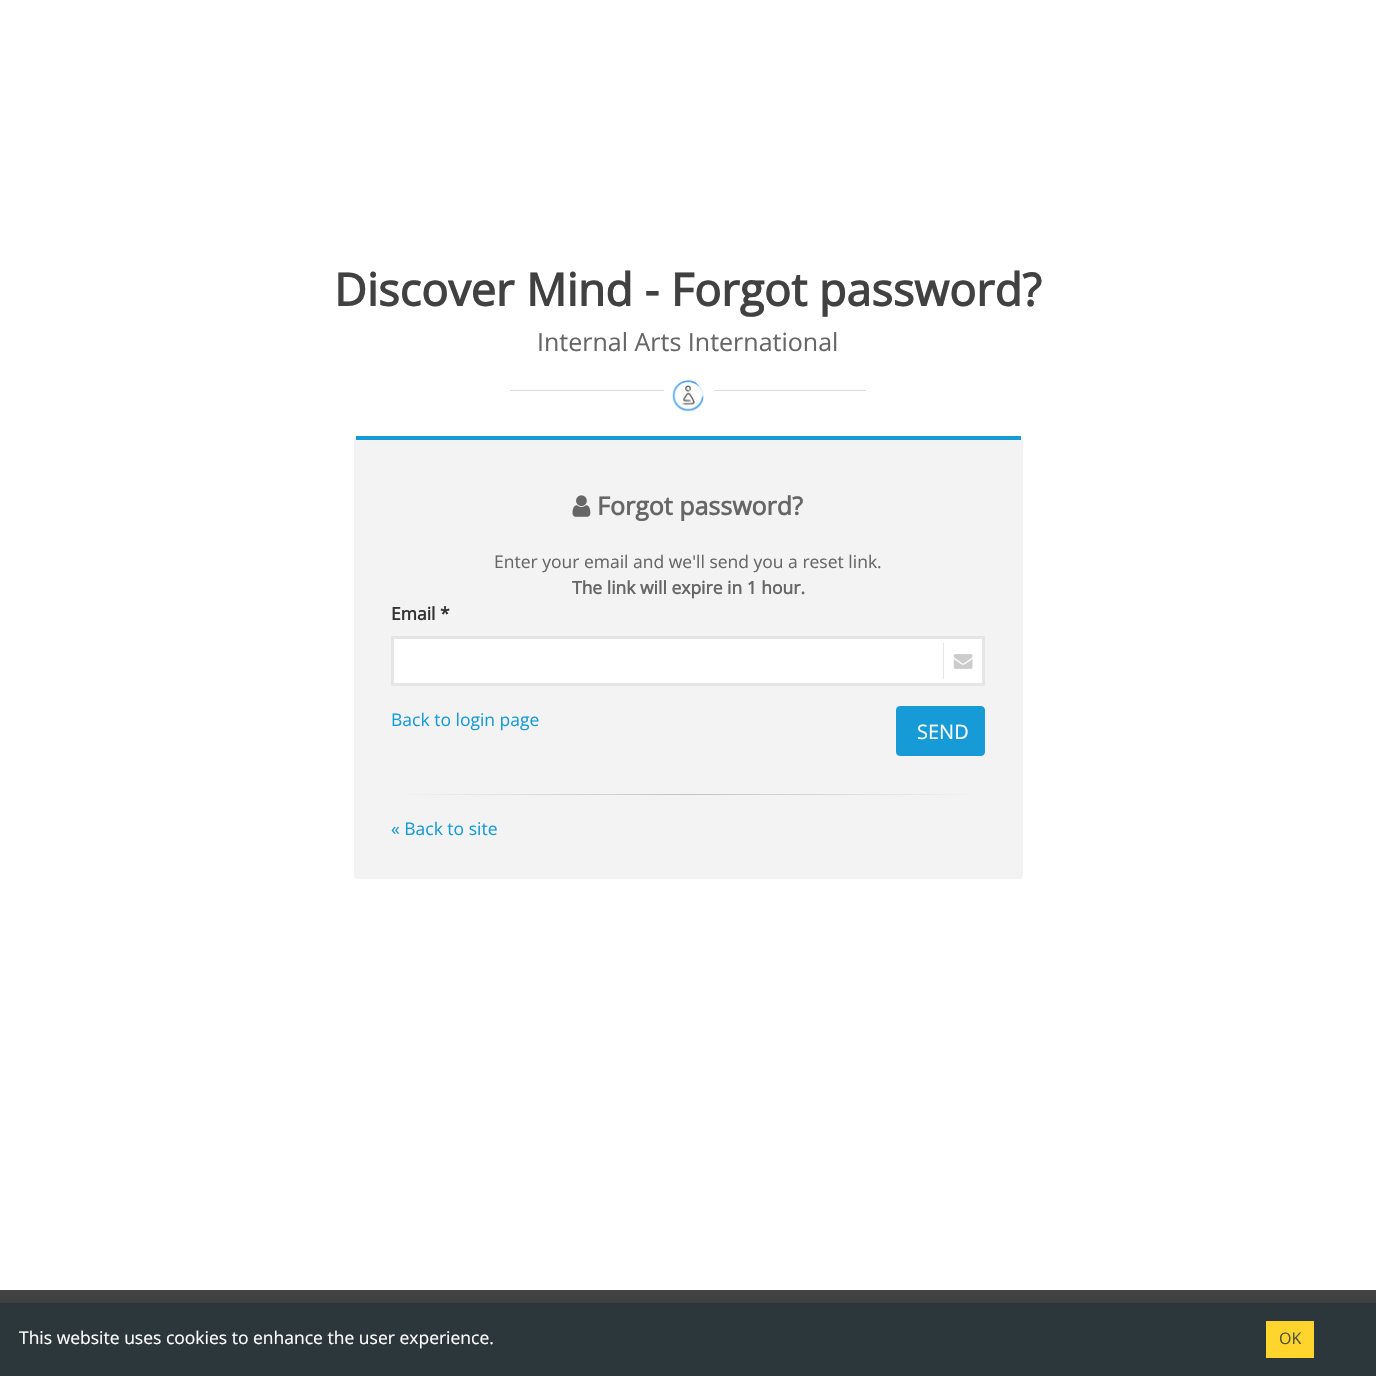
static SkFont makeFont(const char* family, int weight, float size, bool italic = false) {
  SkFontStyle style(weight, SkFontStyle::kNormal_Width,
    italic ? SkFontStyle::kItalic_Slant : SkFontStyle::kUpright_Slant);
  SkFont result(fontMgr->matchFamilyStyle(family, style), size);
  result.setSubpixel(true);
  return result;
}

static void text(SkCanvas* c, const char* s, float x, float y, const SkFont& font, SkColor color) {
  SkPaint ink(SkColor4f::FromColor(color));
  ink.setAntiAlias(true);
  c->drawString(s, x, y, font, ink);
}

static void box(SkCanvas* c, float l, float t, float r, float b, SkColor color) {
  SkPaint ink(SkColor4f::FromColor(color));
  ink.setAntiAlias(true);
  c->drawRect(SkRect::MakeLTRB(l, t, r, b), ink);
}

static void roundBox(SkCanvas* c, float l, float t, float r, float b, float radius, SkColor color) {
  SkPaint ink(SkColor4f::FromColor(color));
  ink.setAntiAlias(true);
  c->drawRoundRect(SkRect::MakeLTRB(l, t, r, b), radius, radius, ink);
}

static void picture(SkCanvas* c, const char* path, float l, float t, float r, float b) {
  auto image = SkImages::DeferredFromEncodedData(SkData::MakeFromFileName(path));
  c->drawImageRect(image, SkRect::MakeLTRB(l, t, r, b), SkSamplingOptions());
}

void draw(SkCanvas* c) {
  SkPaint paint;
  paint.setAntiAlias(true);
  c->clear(0xffffffff);
  SkFont face1 = makeFont("Open Sans", 700, 45);
  text(c, "Discover Mind - Forgot password?", 334, 306, face1, 0xff414141);
  SkFont face2 = makeFont("Open Sans", 400, 25);
  text(c, "Internal Arts International", 537, 351, face2, 0xff666666);
  box(c, 510, 390, 664, 391, 0xffdddddd);
  picture(c, "img_01.png", 672, 380, 704, 412);
  box(c, 714, 390, 866, 391, 0xffdddddd);
  roundBox(c, 354, 436, 1023, 879, 4, 0xfff3f3f3);
  box(c, 356, 436, 1021, 440, 0xff179bd7);
  picture(c, "img_02.png", 572, 495, 591, 517);
  SkFont face3 = makeFont("Open Sans", 700, 25);
  text(c, "Forgot password?", 597, 515, face3, 0xff666666);
  SkFont face4 = makeFont("Open Sans", 400, 17.5f);
  text(c, "Enter your email and we'll send you a reset link.", 494, 568, face4, 0xff666666);
  SkFont face5 = makeFont("Open Sans", 700, 17.5f);
  text(c, "The link will expire in 1 hour.", 572, 594, face5, 0xff666666);
  text(c, "Email *", 391, 620, face5, 0xff333333);
  paint.setColor(0xffffffff);
  c->drawRect(SkRect::MakeLTRB(392.5f, 637.5f, 983.5f, 684.5f), paint);
  paint.setStyle(SkPaint::kStroke_Style);
  paint.setStrokeWidth(3);
  paint.setColor(0xffe5e5e5);
  c->drawRect(SkRect::MakeLTRB(392.5f, 637.5f, 983.5f, 684.5f), paint);
  box(c, 943, 643, 944, 679, 0xffe5e5e5);
  picture(c, "img_03.png", 953, 654, 973, 669);
  text(c, "Back to login page", 391, 726, face4, 0xff179bd7);
  paint.setStyle(SkPaint::kFill_Style);
  paint.setColor(0xff179bd7);
  c->drawRoundRect(SkRect::MakeLTRB(896.5f, 706.5f, 984.5f, 755.5f), 3.5f, 3.5f, paint);
  paint.setStyle(SkPaint::kStroke_Style);
  paint.setStrokeWidth(1);
  c->drawRoundRect(SkRect::MakeLTRB(896.5f, 706.5f, 984.5f, 755.5f), 3.5f, 3.5f, paint);
  SkFont face6 = makeFont("Open Sans", 400, 20);
  text(c, "SEND", 917, 739, face6, 0xffffffff);
  paint.setStyle(SkPaint::kFill_Style);
  {
    const SkColor colors[] = {0xfff3f3f3, 0xffc2c2c2, 0xfff3f3f3};
    const float stops[] = {0, 0.5f, 1};
    const SkPoint ends[] = {{985, 794}, {391, 794}};
    paint.setShader(SkGradientShader::MakeLinear(ends, colors, stops, 3, SkTileMode::kClamp));
    paint.setAlpha(255);
  }
  c->drawRect(SkRect::MakeLTRB(406, 794, 970, 795), paint);
  text(c, "« Back to site", 391, 835, face4, 0xff179bd7);
  {
    const SkColor colors[] = {0xff444444, 0xff272727};
    const float stops[] = {0, 1};
    const SkPoint ends[] = {{688, 1290}, {688, 1376}};
    paint.setShader(SkGradientShader::MakeLinear(ends, colors, stops, 2, SkTileMode::kClamp));
    paint.setAlpha(255);
  }
  c->drawRect(SkRect::MakeLTRB(0, 1290, 1376, 1303), paint);
  box(c, 0, 1303, 1376, 1376, 0xff2b373b);
  text(c, "This website uses cookies to enhance the user experience.", 19, 1344, face4, 0xffffffff);
  box(c, 1266, 1321, 1314, 1358, 0xffffd42d);
  SkFont face7 = makeFont("Open Sans", 400, 16);
  text(c, "OK", 1279, 1344, face7, 0xff4e503b);
}
